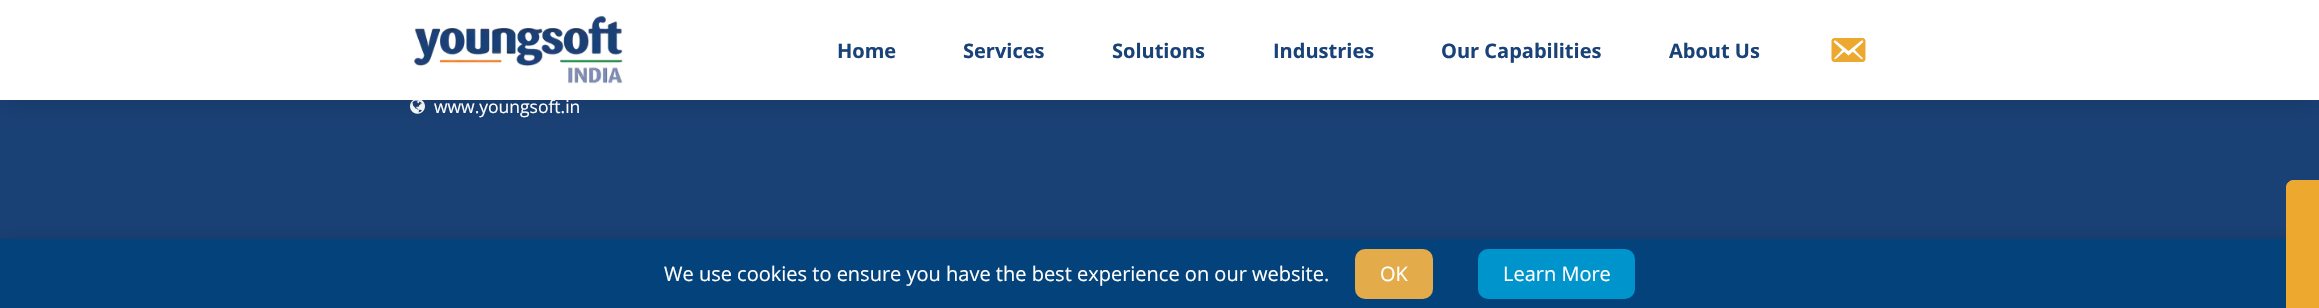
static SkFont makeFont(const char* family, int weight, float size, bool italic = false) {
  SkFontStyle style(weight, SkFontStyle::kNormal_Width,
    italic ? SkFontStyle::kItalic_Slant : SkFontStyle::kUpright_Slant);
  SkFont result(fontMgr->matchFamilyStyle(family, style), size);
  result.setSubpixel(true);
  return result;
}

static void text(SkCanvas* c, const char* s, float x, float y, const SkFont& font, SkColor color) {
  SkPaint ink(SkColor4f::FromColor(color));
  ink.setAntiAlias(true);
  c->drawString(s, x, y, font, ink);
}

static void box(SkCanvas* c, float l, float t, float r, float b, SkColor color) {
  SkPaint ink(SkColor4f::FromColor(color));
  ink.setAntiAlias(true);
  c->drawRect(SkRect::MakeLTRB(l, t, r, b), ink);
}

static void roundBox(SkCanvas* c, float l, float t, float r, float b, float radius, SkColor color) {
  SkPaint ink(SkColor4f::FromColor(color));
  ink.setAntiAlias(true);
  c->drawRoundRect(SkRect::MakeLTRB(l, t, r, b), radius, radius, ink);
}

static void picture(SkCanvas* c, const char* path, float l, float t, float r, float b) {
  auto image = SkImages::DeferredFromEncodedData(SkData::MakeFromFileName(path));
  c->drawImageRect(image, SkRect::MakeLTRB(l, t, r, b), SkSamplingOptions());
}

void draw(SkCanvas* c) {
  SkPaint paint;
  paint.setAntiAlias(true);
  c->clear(0xff1a4176);
  picture(c, "img_03.png", 410, 100, 425, 114);
  paint.setColor(0x26000000);
  paint.setMaskFilter(SkMaskFilter::MakeBlur(kNormal_SkBlurStyle, 12.5f));
  c->drawRect(SkRect::MakeLTRB(0, 3, 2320, 103), paint);
  paint.setMaskFilter(nullptr);
  box(c, 0, 0, 2319, 100, 0xffffffff);
  picture(c, "img_01.png", 414, 15, 623, 84);
  SkFont face1 = makeFont("Open Sans", 700, 20);
  text(c, "Home", 837, 58, face1, 0xff194378);
  text(c, "Services", 963, 58, face1, 0xff194378);
  text(c, "Solutions", 1112, 58, face1, 0xff194378);
  text(c, "Industries", 1273, 58, face1, 0xff194378);
  text(c, "Our Capabilities", 1441, 58, face1, 0xff194378);
  text(c, "About Us", 1669, 58, face1, 0xff194378);
  picture(c, "img_02.png", 1831, 38, 1866, 62);
  paint.setColor(0x4a000000);
  paint.setMaskFilter(SkMaskFilter::MakeBlur(kNormal_SkBlurStyle, 12.5f));
  c->drawRect(SkRect::MakeLTRB(0, 246, 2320, 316), paint);
  paint.setMaskFilter(nullptr);
  paint.setColor(0xffeda82f);
  c->drawPath(SkPathBuilder().moveTo(2286, 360).lineTo(2286, 188).cubicTo(2286, 183, 2290, 180, 2294, 180).lineTo(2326, 180).cubicTo(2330, 180, 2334, 183, 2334, 188).lineTo(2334, 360).cubicTo(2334, 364, 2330, 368, 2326, 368).lineTo(2294, 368).cubicTo(2290, 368, 2286, 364, 2286, 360).close().detach(), paint);
  c->drawPath(SkPathBuilder(SkPathFillType::kEvenOdd).moveTo(2286, 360).lineTo(2286, 188).cubicTo(2286, 183, 2290, 180, 2294, 180).lineTo(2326, 180).cubicTo(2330, 180, 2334, 183, 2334, 188).lineTo(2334, 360).cubicTo(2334, 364, 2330, 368, 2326, 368).lineTo(2294, 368).cubicTo(2290, 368, 2286, 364, 2286, 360).close().moveTo(2288, 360).lineTo(2288, 188).cubicTo(2288, 184, 2290, 181, 2294, 181).lineTo(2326, 181).cubicTo(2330, 181, 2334, 184, 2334, 188).lineTo(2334, 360).cubicTo(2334, 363, 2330, 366, 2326, 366).lineTo(2294, 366).cubicTo(2290, 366, 2288, 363, 2288, 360).close().detach(), paint);
  SkFont face2 = makeFont("Open Sans", 400, 17.5f);
  text(c, "www.youngsoft.in", 434, 113, face2, 0xffffffff);
  box(c, 0, 239, 2286, 308, 0xff03427a);
  SkFont face3 = makeFont("Open Sans", 400, 20);
  text(c, "We use cookies to ensure you have the best experience on our website.", 664, 281, face3, 0xffffffff);
  roundBox(c, 1355, 249, 1433, 299, 10, 0xffe3ab4a);
  text(c, "OK", 1380, 281, face3, 0xffffffff);
  roundBox(c, 1478, 249, 1635, 299, 10, 0xff0094cd);
  text(c, "Learn More", 1503, 281, face3, 0xffffffff);
}
